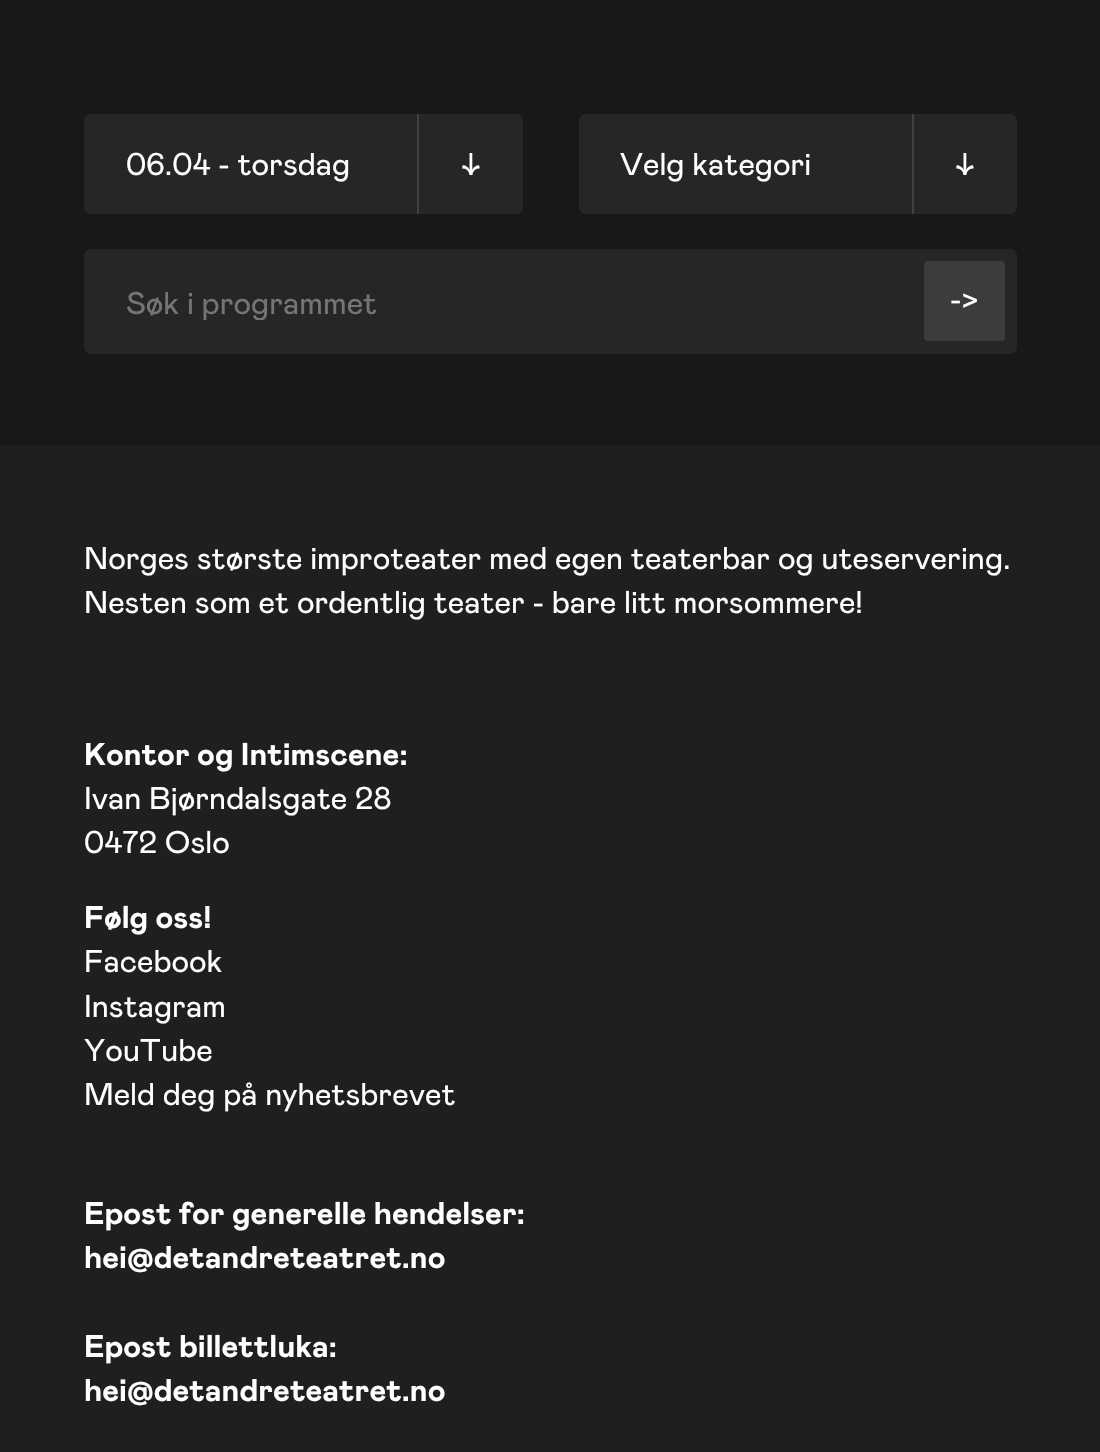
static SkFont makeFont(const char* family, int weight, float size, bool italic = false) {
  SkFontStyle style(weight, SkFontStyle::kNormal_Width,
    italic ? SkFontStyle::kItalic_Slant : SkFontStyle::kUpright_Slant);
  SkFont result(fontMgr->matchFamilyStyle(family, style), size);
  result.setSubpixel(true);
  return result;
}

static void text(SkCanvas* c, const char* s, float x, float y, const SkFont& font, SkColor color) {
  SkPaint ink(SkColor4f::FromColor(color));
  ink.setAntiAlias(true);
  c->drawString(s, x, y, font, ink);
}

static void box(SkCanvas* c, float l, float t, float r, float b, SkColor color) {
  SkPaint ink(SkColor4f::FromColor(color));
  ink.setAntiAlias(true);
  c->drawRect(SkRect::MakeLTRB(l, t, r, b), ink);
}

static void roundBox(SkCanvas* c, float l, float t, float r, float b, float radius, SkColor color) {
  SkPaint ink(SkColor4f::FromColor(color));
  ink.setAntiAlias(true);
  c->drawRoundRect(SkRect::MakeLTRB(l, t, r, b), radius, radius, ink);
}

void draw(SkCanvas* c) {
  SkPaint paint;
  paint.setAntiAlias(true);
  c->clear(0xff19171a);
  roundBox(c, 84, 114, 523, 214, 7, 0xff272527);
  SkFont face1 = makeFont("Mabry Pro", 400, 31.5f);
  text(c, "06.04 - torsdag", 126, 175, face1, 0xffffffff);
  box(c, 417, 114, 419, 214, 0xff413f41);
  text(c, "↓", 461, 175, face1, 0xffffffff);
  roundBox(c, 579, 114, 1017, 214, 7, 0xff272527);
  text(c, "Velg kategori", 620, 175, face1, 0xffffffff);
  box(c, 912, 114, 914, 214, 0xff413f41);
  text(c, "↓", 955, 175, face1, 0xffffffff);
  roundBox(c, 84, 249, 1017, 354, 7, 0xff272527);
  c->save();
  c->clipRect(SkRect::MakeLTRB(126, 282, 866, 320));
  text(c, "Søk i programmet", 126, 314, face1, 0xff757575);
  c->restore();
  roundBox(c, 924, 261, 1005, 341, 4, 0xff3d3b3d);
  text(c, "->", 950, 310, face1, 0xffffffff);
  box(c, 0, 445, 1100, 1452, 0xff201e20);
  text(c, "Norges største improteater med egen teaterbar og uteservering.", 84, 569, face1, 0xffffffff);
  text(c, "Nesten som et ordentlig teater - bare litt morsommere!", 84, 613, face1, 0xffffffff);
  SkFont face2 = makeFont("Mabry Pro", 700, 31.5f);
  text(c, "Kontor og Intimscene:", 84, 765, face2, 0xffffffff);
  text(c, "Ivan Bjørndalsgate 28", 84, 809, face1, 0xffffffff);
  text(c, "0472 Oslo", 84, 853, face1, 0xffffffff);
  text(c, "Følg oss!", 84, 928, face2, 0xffffffff);
  text(c, "Facebook", 84, 972, face1, 0xffffffff);
  text(c, "Instagram", 84, 1017, face1, 0xffffffff);
  text(c, "YouTube", 84, 1061, face1, 0xffffffff);
  text(c, "Meld deg på nyhetsbrevet", 84, 1105, face1, 0xffffffff);
  text(c, "Epost for generelle hendelser:", 84, 1224, face2, 0xffffffff);
  text(c, "hei@detandreteatret.no", 84, 1268, face2, 0xffffffff);
  text(c, "Epost billettluka:", 84, 1357, face2, 0xffffffff);
  text(c, "hei@detandreteatret.no", 84, 1401, face2, 0xffffffff);
}
